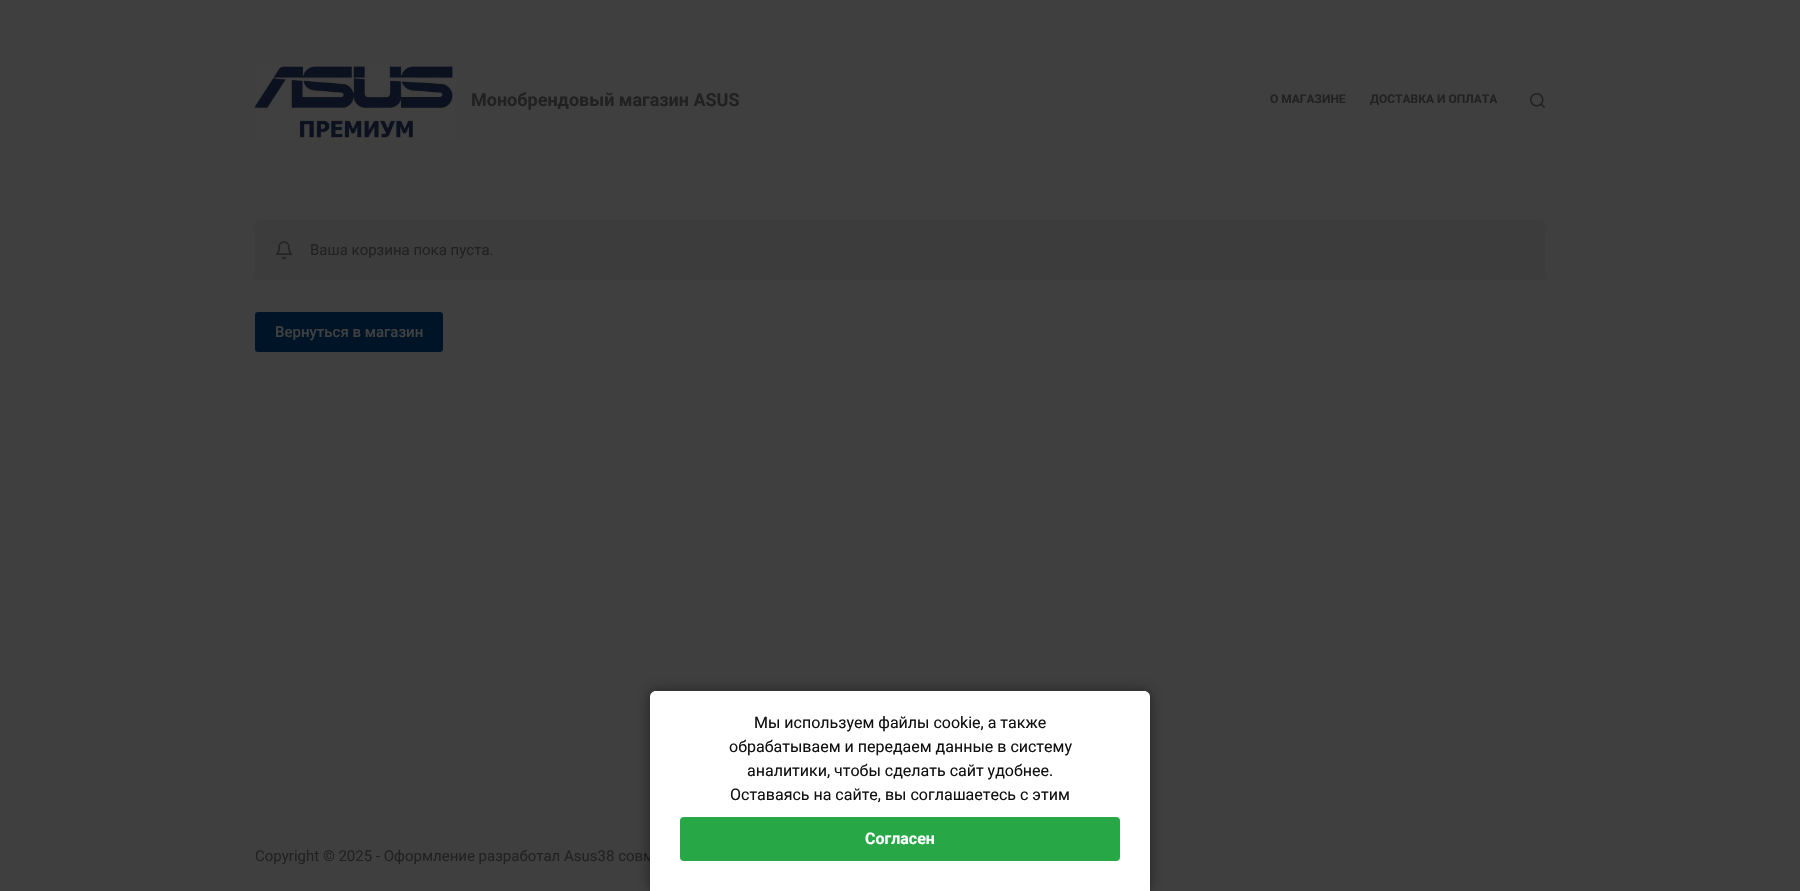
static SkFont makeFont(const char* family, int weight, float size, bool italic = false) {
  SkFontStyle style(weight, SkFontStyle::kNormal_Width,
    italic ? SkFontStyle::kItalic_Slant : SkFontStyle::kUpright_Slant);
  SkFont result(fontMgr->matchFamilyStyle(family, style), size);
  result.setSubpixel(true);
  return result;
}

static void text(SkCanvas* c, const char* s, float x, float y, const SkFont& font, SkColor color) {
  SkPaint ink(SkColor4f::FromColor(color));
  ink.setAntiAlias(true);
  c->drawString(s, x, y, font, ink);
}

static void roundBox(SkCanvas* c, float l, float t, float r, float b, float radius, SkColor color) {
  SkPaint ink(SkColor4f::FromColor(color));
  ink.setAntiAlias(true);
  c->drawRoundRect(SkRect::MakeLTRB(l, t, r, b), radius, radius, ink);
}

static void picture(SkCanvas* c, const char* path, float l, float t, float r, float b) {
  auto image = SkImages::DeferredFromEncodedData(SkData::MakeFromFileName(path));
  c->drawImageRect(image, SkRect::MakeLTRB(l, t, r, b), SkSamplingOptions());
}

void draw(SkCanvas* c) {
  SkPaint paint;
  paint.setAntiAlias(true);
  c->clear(0xff3f3f3f);
  picture(c, "img_01.png", 255, 65, 455, 140);
  SkFont face1 = makeFont("Roboto", 700, 18);
  text(c, "Монобрендовый магазин ASUS", 471, 106, face1, 0xff212122);
  SkFont face2 = makeFont("Roboto", 700, 12);
  text(c, "О МАГАЗИНЕ", 1270, 103, face2, 0xff212122);
  text(c, "ДОСТАВКА И ОПЛАТА", 1370, 103, face2, 0xff212122);
  picture(c, "img_02.png", 1530, 93, 1545, 108);
  roundBox(c, 255, 220, 1545, 280, 5, 0xff3c3c3d);
  picture(c, "img_03.png", 275, 241, 293, 260);
  SkFont face3 = makeFont("Roboto", 400, 15);
  text(c, "Ваша корзина пока пуста.", 310, 255, face3, 0xff212122);
  roundBox(c, 255, 312, 443, 352, 3, 0xff001427);
  SkFont face4 = makeFont("Roboto", 500, 15);
  text(c, "Вернуться в магазин", 275, 337, face4, 0xff404040);
  text(c, "Copyright © 2025 - Оформление разработал Asus38 совм", 255, 861, face3, 0xff212122);
  paint.setColor(0x33000000);
  paint.setMaskFilter(SkMaskFilter::MakeBlur(kNormal_SkBlurStyle, 10));
  c->drawRoundRect(SkRect::MakeLTRB(650, 691, 1150, 891), 6, 6, paint);
  paint.setMaskFilter(nullptr);
  paint.setColor(0x4d000000);
  paint.setMaskFilter(SkMaskFilter::MakeBlur(kNormal_SkBlurStyle, 5));
  c->drawRoundRect(SkRect::MakeLTRB(650, 691, 1150, 891), 6, 6, paint);
  paint.setMaskFilter(nullptr);
  paint.setColor(0xffffffff);
  c->drawPath(SkPathBuilder().moveTo(656, 691).lineTo(1144, 691).cubicTo(1147.5f, 691, 1150, 693.5f, 1150, 697).lineTo(1150, 891).lineTo(650, 891).lineTo(650, 697).cubicTo(650, 693.5f, 652.5f, 691, 656, 691).close().detach(), paint);
  SkFont face5 = makeFont("Roboto", 400, 16);
  text(c, "Мы используем файлы cookie, а также", 754, 728, face5, 0xff111111);
  text(c, "обрабатываем и передаем данные в систему", 729, 752, face5, 0xff111111);
  text(c, "аналитики, чтобы сделать сайт удобнее.", 747, 776, face5, 0xff111111);
  text(c, "Оставаясь на сайте, вы соглашаетесь с этим", 730, 800, face5, 0xff111111);
  roundBox(c, 680, 817, 1120, 861, 4, 0xff28a746);
  SkFont face6 = makeFont("Roboto", 700, 16);
  text(c, "Согласен", 865, 844, face6, 0xffffffff);
}
